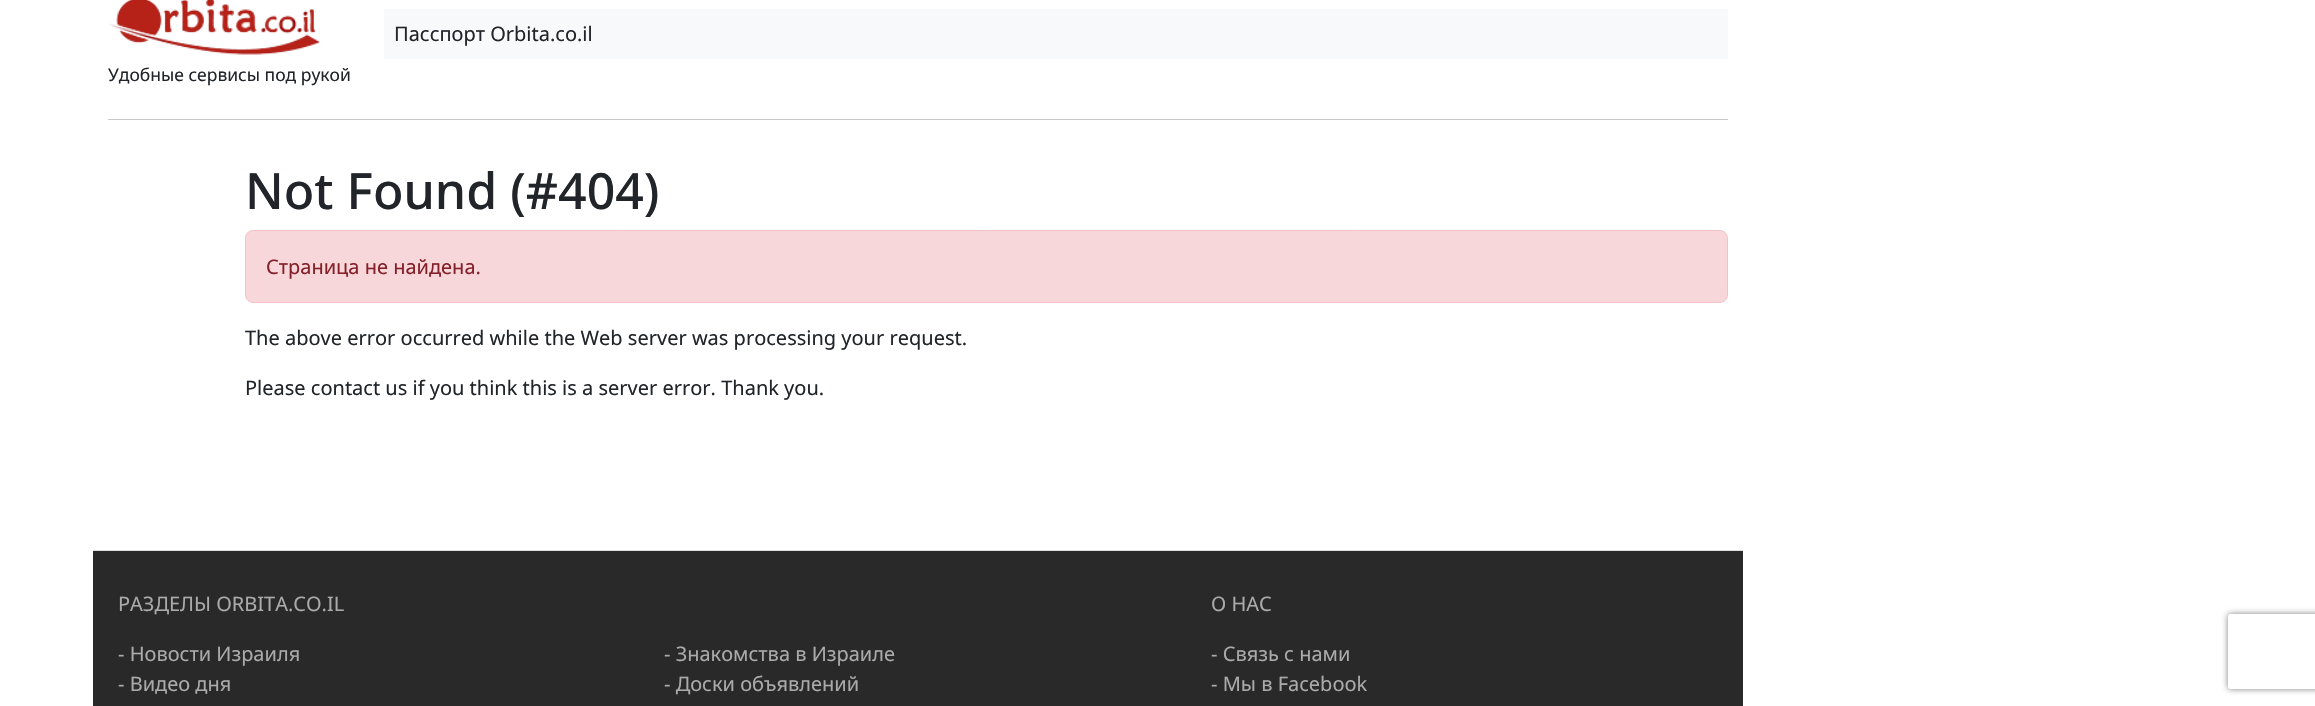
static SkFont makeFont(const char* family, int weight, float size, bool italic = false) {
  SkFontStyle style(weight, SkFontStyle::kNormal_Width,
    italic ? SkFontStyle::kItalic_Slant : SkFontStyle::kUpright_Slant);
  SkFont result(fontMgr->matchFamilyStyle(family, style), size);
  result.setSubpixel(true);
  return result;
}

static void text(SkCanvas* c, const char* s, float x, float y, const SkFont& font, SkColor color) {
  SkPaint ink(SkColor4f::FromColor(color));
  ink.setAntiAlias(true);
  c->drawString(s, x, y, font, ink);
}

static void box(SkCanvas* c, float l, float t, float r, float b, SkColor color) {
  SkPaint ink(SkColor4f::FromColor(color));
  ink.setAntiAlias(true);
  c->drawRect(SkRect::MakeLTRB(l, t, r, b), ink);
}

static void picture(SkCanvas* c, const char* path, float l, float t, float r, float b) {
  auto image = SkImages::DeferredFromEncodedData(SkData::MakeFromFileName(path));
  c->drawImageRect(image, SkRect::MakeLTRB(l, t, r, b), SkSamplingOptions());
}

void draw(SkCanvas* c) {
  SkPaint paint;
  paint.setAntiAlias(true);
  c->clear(0xffffffff);
  box(c, 384, 9, 1728, 59, 0xfff8f9fa);
  SkFont face1 = makeFont("Noto Sans", 400, 20);
  text(c, "Пасспорт Orbita.co.il", 394, 41, face1, 0xff212529);
  picture(c, "img_01.png", 109, 0, 320, 55);
  SkFont face2 = makeFont("Noto Sans", 400, 17.5f);
  text(c, "Удобные сервисы под рукой", 108, 81, face2, 0xff212529);
  box(c, 108, 119, 1728, 120, 0xffc8c9ca);
  SkFont face3 = makeFont("Noto Sans", 500, 50);
  text(c, "Not Found (#404)", 245, 209, face3, 0xff212529);
  paint.setColor(0xfff8d7da);
  c->drawRoundRect(SkRect::MakeLTRB(245.5f, 230.5f, 1727.5f, 302.5f), 7.5f, 7.5f, paint);
  paint.setStyle(SkPaint::kStroke_Style);
  paint.setStrokeWidth(1);
  paint.setColor(0xfff5c2c7);
  c->drawRoundRect(SkRect::MakeLTRB(245.5f, 230.5f, 1727.5f, 302.5f), 7.5f, 7.5f, paint);
  text(c, "Страница не найдена.", 266, 274, face1, 0xff842029);
  text(c, "The above error occurred while the Web server was processing your request.", 245, 345, face1, 0xff212529);
  text(c, "Please contact us if you think this is a server error. Thank you.", 245, 395, face1, 0xff212529);
  box(c, 93, 551, 1743, 706, 0xff292929);
  box(c, 93, 550, 1743, 551, 0xffdddddd);
  text(c, "РАЗДЕЛЫ ORBITA.CO.IL", 118, 611, face1, 0xffaaaaaa);
  text(c, "- Новости Израиля", 118, 661, face1, 0xffaaaaaa);
  text(c, "- Видео дня", 118, 691, face1, 0xffaaaaaa);
  text(c, "- Знакомства в Израиле", 664, 661, face1, 0xffaaaaaa);
  text(c, "- Доски объявлений", 664, 691, face1, 0xffaaaaaa);
  text(c, "О НАС", 1211, 611, face1, 0xffaaaaaa);
  text(c, "- Связь с нами", 1211, 661, face1, 0xffaaaaaa);
  text(c, "- Мы в Facebook", 1211, 691, face1, 0xffaaaaaa);
  c->save();
  c->clipPath(SkPathBuilder(SkPathFillType::kEvenOdd).moveTo(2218, 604).lineTo(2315, 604).lineTo(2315, 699).lineTo(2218, 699).close().moveTo(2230.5f, 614).lineTo(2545.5f, 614).cubicTo(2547, 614, 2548, 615, 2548, 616.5f).lineTo(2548, 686.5f).cubicTo(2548, 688, 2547, 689, 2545.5f, 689).lineTo(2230.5f, 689).cubicTo(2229, 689, 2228, 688, 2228, 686.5f).lineTo(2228, 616.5f).cubicTo(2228, 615, 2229, 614, 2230.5f, 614).close().detach(), true);
  paint.setStyle(SkPaint::kFill_Style);
  paint.setColor(0xff808080);
  paint.setMaskFilter(SkMaskFilter::MakeBlur(kNormal_SkBlurStyle, 3));
  c->drawRoundRect(SkRect::MakeLTRB(2228, 614, 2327, 689), 2.5f, 2.5f, paint);
  paint.setMaskFilter(nullptr);
  c->restore();
}
